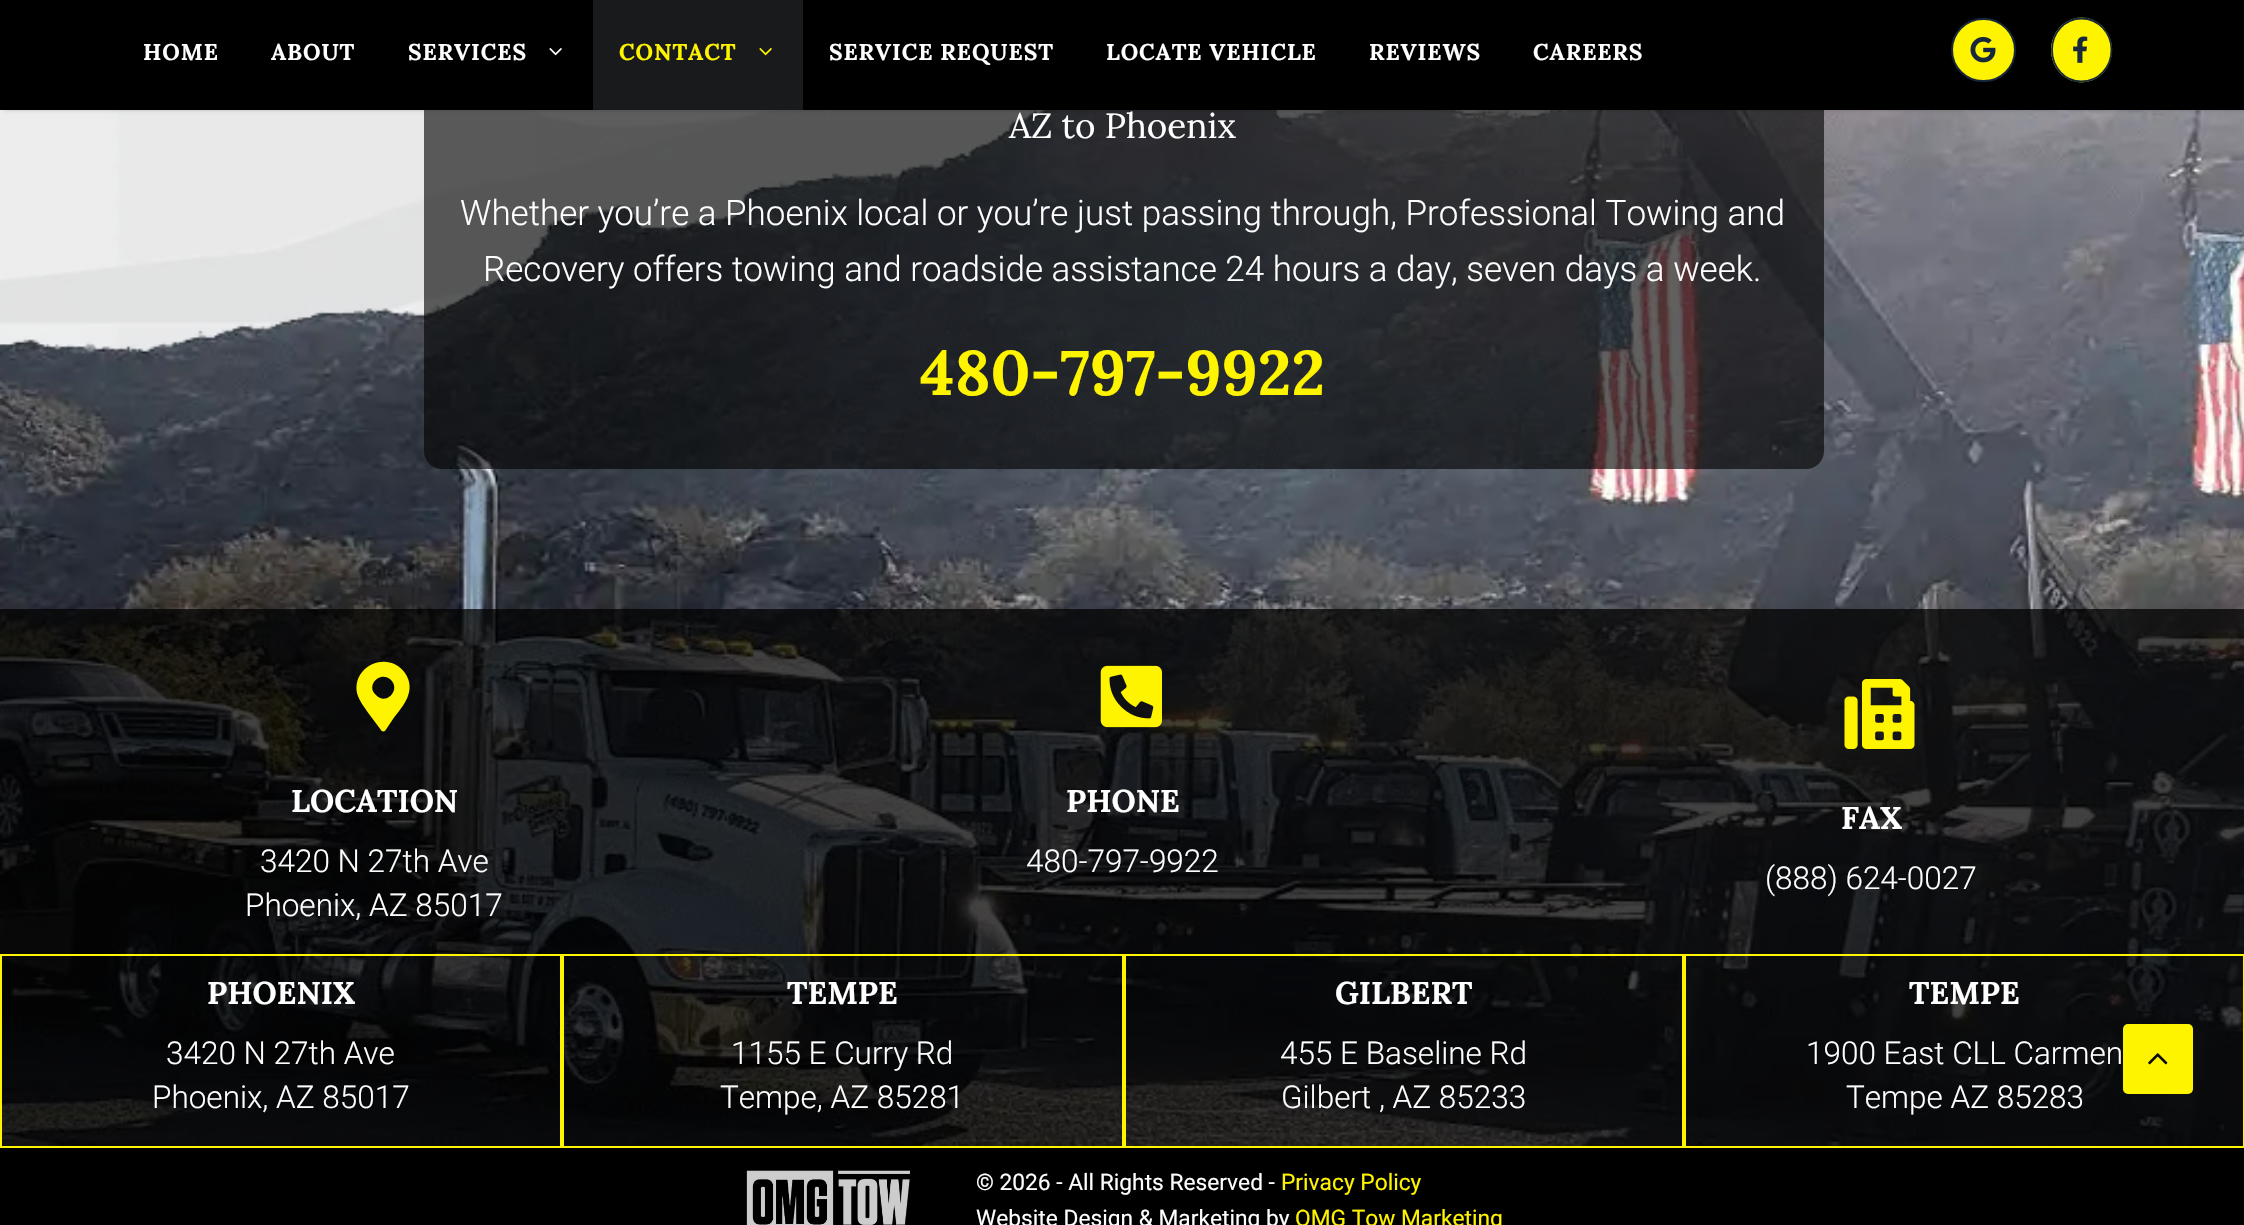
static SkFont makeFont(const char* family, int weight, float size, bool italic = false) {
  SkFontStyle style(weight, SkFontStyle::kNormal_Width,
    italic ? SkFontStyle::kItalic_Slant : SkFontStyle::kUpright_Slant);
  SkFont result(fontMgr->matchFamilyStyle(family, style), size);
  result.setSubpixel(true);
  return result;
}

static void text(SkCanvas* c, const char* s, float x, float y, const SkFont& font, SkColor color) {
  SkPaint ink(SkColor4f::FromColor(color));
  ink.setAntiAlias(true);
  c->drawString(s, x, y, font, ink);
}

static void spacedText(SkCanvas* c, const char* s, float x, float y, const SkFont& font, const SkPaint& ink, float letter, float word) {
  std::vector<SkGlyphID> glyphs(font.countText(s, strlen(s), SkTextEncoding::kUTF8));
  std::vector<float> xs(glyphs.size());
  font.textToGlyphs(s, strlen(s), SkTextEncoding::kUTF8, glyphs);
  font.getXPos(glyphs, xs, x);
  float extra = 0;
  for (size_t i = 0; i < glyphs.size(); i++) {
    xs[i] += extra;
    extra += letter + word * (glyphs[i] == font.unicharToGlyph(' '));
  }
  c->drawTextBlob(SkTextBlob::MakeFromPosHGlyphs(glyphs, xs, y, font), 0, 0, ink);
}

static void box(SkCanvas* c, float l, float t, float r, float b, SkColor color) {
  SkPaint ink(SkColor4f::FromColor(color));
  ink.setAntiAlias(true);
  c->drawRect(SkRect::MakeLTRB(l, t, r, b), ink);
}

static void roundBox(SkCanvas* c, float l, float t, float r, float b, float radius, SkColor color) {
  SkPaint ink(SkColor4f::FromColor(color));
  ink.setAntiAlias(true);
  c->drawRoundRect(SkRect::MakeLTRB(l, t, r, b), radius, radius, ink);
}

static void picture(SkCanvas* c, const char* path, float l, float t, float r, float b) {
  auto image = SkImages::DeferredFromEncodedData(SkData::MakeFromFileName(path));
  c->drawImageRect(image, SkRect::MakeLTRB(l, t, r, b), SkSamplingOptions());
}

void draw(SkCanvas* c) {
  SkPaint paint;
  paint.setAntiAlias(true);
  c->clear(0xffffffff);
  picture(c, "img_05.png", 0, 110, 2244, 1146);
  roundBox(c, 424, -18, 1824, 469, 18, 0x9e000000);
  paint.setColor(0x33000000);
  paint.setMaskFilter(SkMaskFilter::MakeBlur(kNormal_SkBlurStyle, 2));
  c->drawRect(SkRect::MakeLTRB(4, 7, 2242, 110), paint);
  paint.setMaskFilter(nullptr);
  box(c, 0, 0, 2244, 110, 0xff000000);
  SkFont face1 = makeFont("Lora", 700, 22.75f);
  paint.setColor(0xffffffff);
  spacedText(c, "HOME", 143, 60, face1, paint, 0.9f, 0);
  spacedText(c, "ABOUT", 271, 60, face1, paint, 0.9f, 0);
  spacedText(c, "SERVICES", 408, 60, face1, paint, 0.9f, 0);
  picture(c, "img_01.png", 549, 48, 562, 56);
  box(c, 593, 0, 803, 110, 0xff191a1b);
  paint.setColor(0xfffef400);
  spacedText(c, "CONTACT", 619, 60, face1, paint, 0.9f, 0);
  picture(c, "img_02.png", 759, 48, 772, 56);
  paint.setColor(0xffffffff);
  spacedText(c, "SERVICE REQUEST", 829, 60, face1, paint, 0.9f, 0);
  spacedText(c, "LOCATE VEHICLE", 1106, 60, face1, paint, 0.9f, 0);
  spacedText(c, "REVIEWS", 1369, 60, face1, paint, 0.9f, 0);
  spacedText(c, "CAREERS", 1533, 60, face1, paint, 0.9f, 0);
  paint.setColor(0xfffef400);
  c->drawRoundRect(SkRect::MakeLTRB(1952, 19, 2015, 81), 31, 31, paint);
  paint.setStyle(SkPaint::kStroke_Style);
  paint.setStrokeWidth(2);
  paint.setColor(0xff17283d);
  c->drawRoundRect(SkRect::MakeLTRB(1952, 19, 2015, 81), 31, 31, paint);
  picture(c, "img_03.png", 1970, 36, 1996, 63);
  paint.setStyle(SkPaint::kFill_Style);
  paint.setColor(0xfffef400);
  c->drawOval(SkRect::MakeLTRB(2051, 17.5f, 2112, 82.5f), paint);
  paint.setStyle(SkPaint::kStroke_Style);
  paint.setStrokeWidth(1.8f);
  paint.setColor(0xff17283d);
  c->drawPath(SkPathBuilder().moveTo(2081.5f, 18.5f).cubicTo(2098, 18.5f, 2111.5f, 32.5f, 2111.5f, 50).cubicTo(2111.5f, 67.5f, 2098, 81.5f, 2081.5f, 81.5f).cubicTo(2065, 81.5f, 2052, 67.5f, 2052, 50).cubicTo(2052, 32.5f, 2065, 18.5f, 2081.5f, 18.5f).close().detach(), paint);
  picture(c, "img_04.png", 2073, 36, 2088, 63);
  SkFont face2 = makeFont("Lora", 400, 35);
  text(c, "AZ to Phoenix", 1009, 138, face2, 0xffffffff);
  SkFont face3 = makeFont("Roboto", 300, 35);
  text(c, "Whether you’re a Phoenix local or you’re just passing through, Professional Towing and", 460, 225, face3, 0xffffffff);
  text(c, "Recovery offers towing and roadside assistance 24 hours a day, seven days a week.", 483, 281, face3, 0xffffffff);
  SkFont face4 = makeFont("Lora", 700, 63);
  text(c, "480-797-9922", 920, 395, face4, 0xfffef400);
  box(c, 0, 609, 2244, 954, 0xbd000000);
  paint.setStyle(SkPaint::kFill_Style);
  paint.setColor(0xfffef400);
  c->drawPath(SkPathBuilder().moveTo(381, 730).lineTo(369, 714).cubicTo(365, 708, 359, 701, 357, 693).cubicTo(352, 665, 389, 650, 405, 673).cubicTo(417, 691, 403, 706, 393, 719).lineTo(385, 731).cubicTo(383, 732, 381, 731, 381, 730).close().moveTo(376, 695).cubicTo(386, 706, 401, 690, 391, 680).cubicTo(381, 670, 365, 685, 376, 695).close().detach(), paint);
  SkFont face5 = makeFont("Lora", 700, 31.5f);
  text(c, "LOCATION", 291, 812, face5, 0xffffffff);
  SkFont face6 = makeFont("Roboto", 300, 31.5f);
  text(c, "3420 N 27th Ave", 260, 872, face6, 0xffffffff);
  text(c, "Phoenix, AZ 85017", 245, 916, face6, 0xffffffff);
  picture(c, "img_06.png", 1100, 665, 1162, 728);
  text(c, "PHONE", 1066, 812, face5, 0xffffffff);
  text(c, "480-797-9922", 1026, 872, face6, 0xffffffff);
  picture(c, "img_07.png", 1844, 679, 1915, 749);
  text(c, "FAX", 1841, 829, face5, 0xffffffff);
  text(c, "(888) 624-0027", 1765, 889, face6, 0xffffffff);
  paint.setColor(0xbd000000);
  c->drawRect(SkRect::MakeLTRB(1, 955, 561, 1147), paint);
  paint.setStyle(SkPaint::kStroke_Style);
  paint.setStrokeWidth(2);
  paint.setColor(0xfffef400);
  c->drawRect(SkRect::MakeLTRB(1, 955, 561, 1147), paint);
  text(c, "PHOENIX", 207, 1004, face5, 0xffffffff);
  text(c, "3420 N 27th Ave", 166, 1064, face6, 0xffffffff);
  text(c, "Phoenix, AZ 85017", 152, 1108, face6, 0xffffffff);
  paint.setStyle(SkPaint::kFill_Style);
  paint.setColor(0xbd000000);
  c->drawRect(SkRect::MakeLTRB(563, 955, 1123, 1147), paint);
  paint.setStyle(SkPaint::kStroke_Style);
  paint.setColor(0xfffef400);
  c->drawRect(SkRect::MakeLTRB(563, 955, 1123, 1147), paint);
  text(c, "TEMPE", 787, 1004, face5, 0xffffffff);
  text(c, "1155 E Curry Rd", 731, 1064, face6, 0xffffffff);
  text(c, "Tempe, AZ 85281", 720, 1108, face6, 0xffffffff);
  paint.setStyle(SkPaint::kFill_Style);
  paint.setColor(0xbd000000);
  c->drawRect(SkRect::MakeLTRB(1125, 955, 1683, 1147), paint);
  paint.setStyle(SkPaint::kStroke_Style);
  paint.setColor(0xfffef400);
  c->drawRect(SkRect::MakeLTRB(1125, 955, 1683, 1147), paint);
  text(c, "GILBERT", 1335, 1004, face5, 0xffffffff);
  text(c, "455 E Baseline Rd", 1280, 1064, face6, 0xffffffff);
  text(c, "Gilbert , AZ 85233", 1281, 1108, face6, 0xffffffff);
  paint.setStyle(SkPaint::kFill_Style);
  paint.setColor(0xbd000000);
  c->drawRect(SkRect::MakeLTRB(1685, 955, 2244, 1147), paint);
  paint.setStyle(SkPaint::kStroke_Style);
  paint.setColor(0xfffef400);
  c->drawRect(SkRect::MakeLTRB(1685, 955, 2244, 1147), paint);
  text(c, "TEMPE", 1909, 1004, face5, 0xffffffff);
  text(c, "1900 East CLL Carmen", 1806, 1064, face6, 0xffffffff);
  text(c, "Tempe AZ 85283", 1846, 1108, face6, 0xffffffff);
  roundBox(c, 2123, 1024, 2193, 1094, 5, 0xfffef400);
  picture(c, "img_08.png", 2148, 1053, 2168, 1065);
  box(c, 0, 1148, 2244, 1225, 0xff000000);
  picture(c, "img_09.png", 746, 1170, 910, 1225);
  SkFont face7 = makeFont("Roboto", 400, 22.75f);
  text(c, "© 2026 - All Rights Reserved -", 976, 1190, face7, 0xffffffff);
  text(c, "Privacy Policy", 1281, 1190, face7, 0xfffef400);
  text(c, "Website Design & Marketing by", 976, 1226, face7, 0xffffffff);
  text(c, "OMG Tow Marketing", 1295, 1226, face7, 0xfffef400);
}
